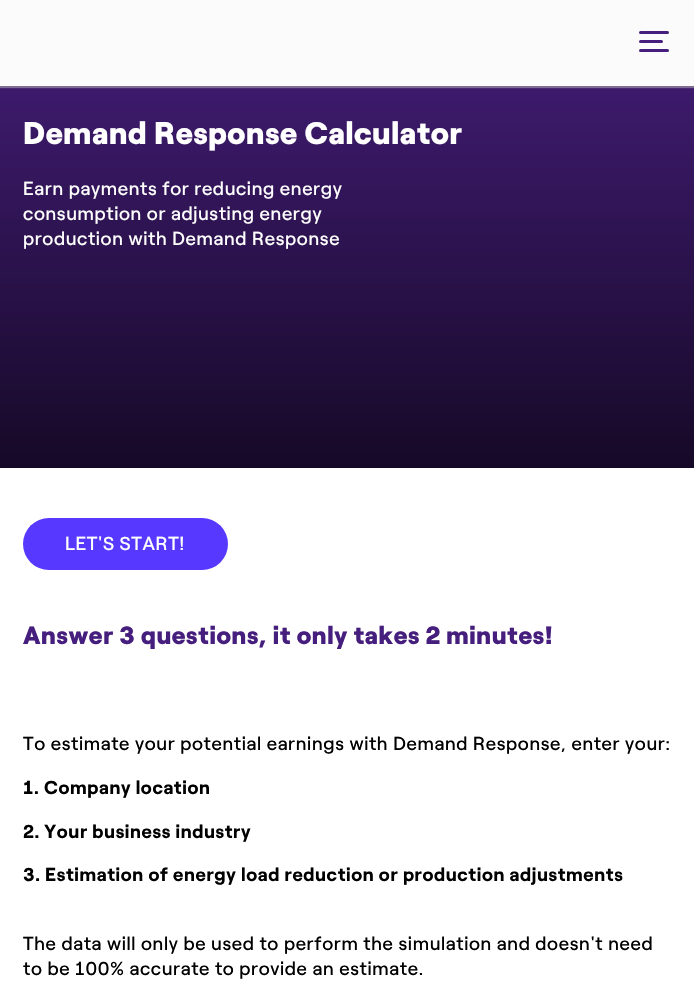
static SkFont makeFont(const char* family, int weight, float size, bool italic = false) {
  SkFontStyle style(weight, SkFontStyle::kNormal_Width,
    italic ? SkFontStyle::kItalic_Slant : SkFontStyle::kUpright_Slant);
  SkFont result(fontMgr->matchFamilyStyle(family, style), size);
  result.setSubpixel(true);
  return result;
}

static void spacedText(SkCanvas* c, const char* s, float x, float y, const SkFont& font, const SkPaint& ink, float letter, float word) {
  std::vector<SkGlyphID> glyphs(font.countText(s, strlen(s), SkTextEncoding::kUTF8));
  std::vector<float> xs(glyphs.size());
  font.textToGlyphs(s, strlen(s), SkTextEncoding::kUTF8, glyphs);
  font.getXPos(glyphs, xs, x);
  float extra = 0;
  for (size_t i = 0; i < glyphs.size(); i++) {
    xs[i] += extra;
    extra += letter + word * (glyphs[i] == font.unicharToGlyph(' '));
  }
  c->drawTextBlob(SkTextBlob::MakeFromPosHGlyphs(glyphs, xs, y, font), 0, 0, ink);
}

static void box(SkCanvas* c, float l, float t, float r, float b, SkColor color) {
  SkPaint ink(SkColor4f::FromColor(color));
  ink.setAntiAlias(true);
  c->drawRect(SkRect::MakeLTRB(l, t, r, b), ink);
}

static void roundBox(SkCanvas* c, float l, float t, float r, float b, float radius, SkColor color) {
  SkPaint ink(SkColor4f::FromColor(color));
  ink.setAntiAlias(true);
  c->drawRoundRect(SkRect::MakeLTRB(l, t, r, b), radius, radius, ink);
}

void draw(SkCanvas* c) {
  SkPaint paint;
  paint.setAntiAlias(true);
  c->clear(0xffffffff);
  {
    const SkColor colors[] = {0xff160927, 0xff461e7c};
    const float stops[] = {0, 1};
    const SkPoint ends[] = {{348, 468}, {348, 0}};
    paint.setShader(SkGradientShader::MakeLinear(ends, colors, stops, 2, SkTileMode::kClamp));
    paint.setAlpha(255);
  }
  c->drawRect(SkRect::MakeLTRB(0, 86, 694, 468), paint);
  paint.setShader(nullptr);
  paint.setColor(0x80bdbdbd);
  paint.setMaskFilter(SkMaskFilter::MakeBlur(kNormal_SkBlurStyle, 0.5f));
  c->drawRect(SkRect::MakeLTRB(0, 0, 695, 88), paint);
  paint.setMaskFilter(nullptr);
  box(c, 0, 0, 694, 86, 0xfffbfbfb);
  roundBox(c, 639, 31, 669, 34, 1.5f, 0xff461e7d);
  roundBox(c, 639, 40, 663, 43, 1.5f, 0xff461e7d);
  roundBox(c, 639, 49, 669, 52, 1.5f, 0xff461e7d);
  SkFont face1 = makeFont("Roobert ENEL", 900, 31.25f);
  paint.setColor(0xffffffff);
  spacedText(c, "Demand Response Calculator", 23, 144, face1, paint, 0.62f, 0);
  SkFont face2 = makeFont("Roobert ENEL", 400, 18.75f);
  spacedText(c, "Earn payments for reducing energy", 23, 195, face2, paint, 0.62f, 0);
  spacedText(c, "consumption or adjusting energy", 23, 220, face2, paint, 0.62f, 0);
  spacedText(c, "production with Demand Response", 23, 245, face2, paint, 0.62f, 0);
  roundBox(c, 23, 518, 228, 570, 26, 0xff5738ff);
  spacedText(c, "LET'S START!", 65, 550, face2, paint, 0.62f, 0);
  SkFont face3 = makeFont("Roobert ENEL", 900, 25);
  paint.setColor(0xff461e7d);
  spacedText(c, "Answer 3 questions, it only takes 2 minutes!", 23, 644, face3, paint, 0.62f, 0);
  paint.setColor(0xff000000);
  spacedText(c, "To estimate your potential earnings with Demand Response, enter your:", 23, 750, face2, paint, 0.62f, 0);
  SkFont face4 = makeFont("Roobert ENEL", 700, 18.75f);
  spacedText(c, "1. Company location", 23, 794, face4, paint, 0.62f, 0);
  spacedText(c, "2. Your business industry", 23, 838, face4, paint, 0.62f, 0);
  spacedText(c, "3. Estimation of energy load reduction or production adjustments", 23, 881, face4, paint, 0.62f, 0);
  spacedText(c, "The data will only be used to perform the simulation and doesn't need", 23, 950, face2, paint, 0.62f, 0);
  spacedText(c, "to be 100% accurate to provide an estimate.", 23, 975, face2, paint, 0.62f, 0);
}
